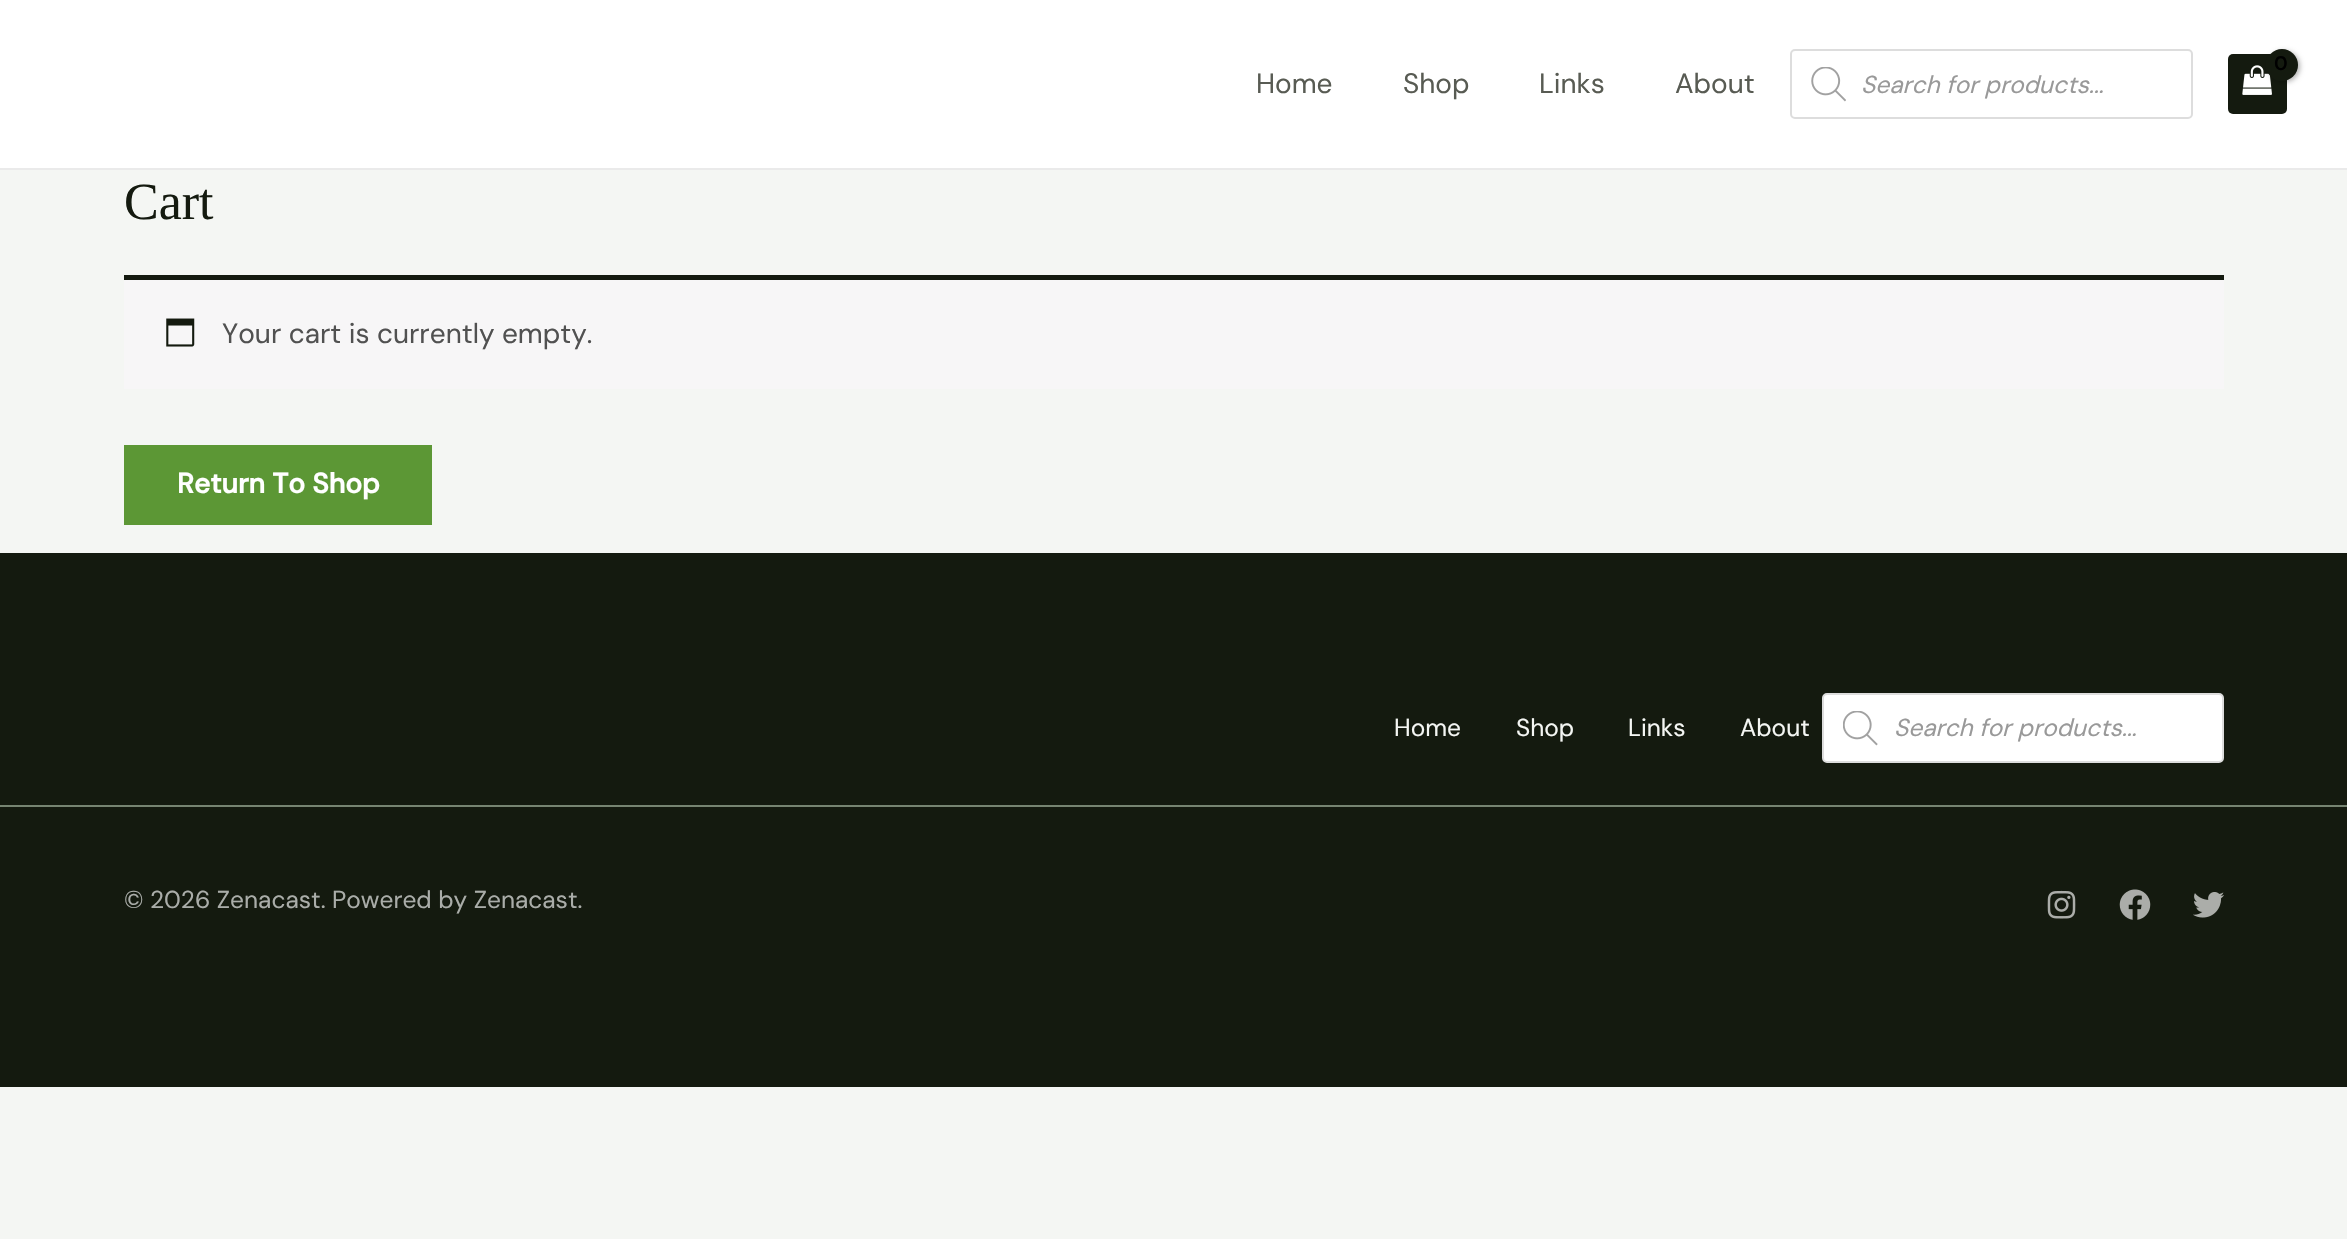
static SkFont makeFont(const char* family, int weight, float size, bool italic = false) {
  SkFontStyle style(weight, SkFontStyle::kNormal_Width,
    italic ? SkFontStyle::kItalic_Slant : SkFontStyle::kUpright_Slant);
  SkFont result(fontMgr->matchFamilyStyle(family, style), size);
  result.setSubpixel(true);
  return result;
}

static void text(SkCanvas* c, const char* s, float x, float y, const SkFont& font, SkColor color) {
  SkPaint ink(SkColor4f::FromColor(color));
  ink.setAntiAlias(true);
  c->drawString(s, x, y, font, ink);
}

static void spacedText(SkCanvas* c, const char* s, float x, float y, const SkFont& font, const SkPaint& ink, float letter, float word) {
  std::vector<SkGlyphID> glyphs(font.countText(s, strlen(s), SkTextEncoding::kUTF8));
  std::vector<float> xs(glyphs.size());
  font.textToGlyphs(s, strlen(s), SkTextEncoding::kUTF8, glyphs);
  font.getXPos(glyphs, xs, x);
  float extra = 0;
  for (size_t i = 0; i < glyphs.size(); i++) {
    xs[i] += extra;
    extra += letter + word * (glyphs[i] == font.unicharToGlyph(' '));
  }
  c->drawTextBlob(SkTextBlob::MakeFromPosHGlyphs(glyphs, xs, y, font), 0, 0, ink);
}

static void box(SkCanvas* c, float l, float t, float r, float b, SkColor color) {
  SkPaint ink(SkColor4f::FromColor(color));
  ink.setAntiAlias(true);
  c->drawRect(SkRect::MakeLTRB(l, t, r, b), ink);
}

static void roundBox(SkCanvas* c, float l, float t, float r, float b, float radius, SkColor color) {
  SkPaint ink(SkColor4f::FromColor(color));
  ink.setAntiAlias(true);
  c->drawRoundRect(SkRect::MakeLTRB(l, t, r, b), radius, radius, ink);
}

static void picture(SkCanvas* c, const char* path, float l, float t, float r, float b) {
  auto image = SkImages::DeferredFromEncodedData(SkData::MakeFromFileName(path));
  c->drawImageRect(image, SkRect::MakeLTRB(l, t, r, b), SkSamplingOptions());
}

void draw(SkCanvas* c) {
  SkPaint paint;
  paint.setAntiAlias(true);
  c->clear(0xfff4f6f3);
  box(c, 0, 0, 2347, 168, 0xffffffff);
  box(c, 0, 168, 2347, 170, 0xffeaeaea);
  roundBox(c, 2228, 54, 2287, 114, 5, 0xff141a0f);
  picture(c, "img_01.png", 2242, 65, 2272, 95);
  paint.setColor(0x4d000000);
  paint.setMaskFilter(SkMaskFilter::MakeBlur(kNormal_SkBlurStyle, 2.5f));
  c->drawRoundRect(SkRect::MakeLTRB(2268, 51, 2300, 82), 15.5f, 15.5f, paint);
  paint.setMaskFilter(nullptr);
  paint.setColor(0xff141a0f);
  c->drawCircle(2282, 65, 16, paint);
  SkFont face1 = makeFont("DM Sans", 700, 19);
  paint.setColor(0xff000000);
  spacedText(c, "0", 2274, 70, face1, paint, -1, 0);
  SkFont face2 = makeFont("DM Sans", 400, 28);
  text(c, "Home", 1256, 93, face2, 0xff585b53);
  text(c, "Shop", 1403, 93, face2, 0xff585b53);
  text(c, "Links", 1539, 93, face2, 0xff585b53);
  text(c, "About", 1675, 93, face2, 0xff585b53);
  paint.setStyle(SkPaint::kStroke_Style);
  paint.setStrokeWidth(2);
  paint.setColor(0xffdddddd);
  c->drawRoundRect(SkRect::MakeLTRB(1791, 50, 2192, 118), 4, 4, paint);
  picture(c, "img_02.png", 1811, 67, 1846, 102);
  SkFont face3 = makeFont("DM Sans", 400, 24.5f, true);
  text(c, "Search for products...", 1861, 93, face3, 0xff999999);
  SkFont face4 = makeFont("Liberation Serif", 400, 52);
  text(c, "Cart", 124, 219, face4, 0xff141a0f);
  box(c, 124, 280, 2224, 389, 0xfff7f6f7);
  box(c, 124, 275, 2224, 280, 0xff141a0f);
  picture(c, "img_03.png", 166, 318, 195, 347);
  text(c, "Your cart is currently empty.", 222, 343, face2, 0xff515151);
  box(c, 124, 445, 432, 525, 0xff5c9735);
  SkFont face5 = makeFont("DM Sans", 700, 28);
  text(c, "Return To Shop", 177, 493, face5, 0xffffffff);
  box(c, 0, 553, 2347, 1087, 0xff141a0f);
  SkFont face6 = makeFont("DM Sans", 400, 24.5f);
  text(c, "Home", 1394, 736, face6, 0xfff4f6f3);
  text(c, "Shop", 1516, 736, face6, 0xfff4f6f3);
  text(c, "Links", 1628, 736, face6, 0xfff4f6f3);
  text(c, "About", 1740, 736, face6, 0xfff4f6f3);
  paint.setStyle(SkPaint::kFill_Style);
  paint.setColor(0xffffffff);
  c->drawRoundRect(SkRect::MakeLTRB(1823, 694, 2223, 762), 4, 4, paint);
  paint.setStyle(SkPaint::kStroke_Style);
  paint.setColor(0xffdddddd);
  c->drawRoundRect(SkRect::MakeLTRB(1823, 694, 2223, 762), 4, 4, paint);
  picture(c, "img_04.png", 1843, 711, 1878, 746);
  text(c, "Search for products...", 1894, 736, face3, 0xff999999);
  box(c, 0, 805, 2347, 807, 0xff768471);
  text(c, "© 2026 Zenacast. Powered by Zenacast.", 124, 908, face6, 0xffaaada9);
  picture(c, "img_05.png", 2047, 890, 2076, 919);
  picture(c, "img_06.png", 2119, 889, 2151, 920);
  picture(c, "img_07.png", 2193, 892, 2224, 918);
}
